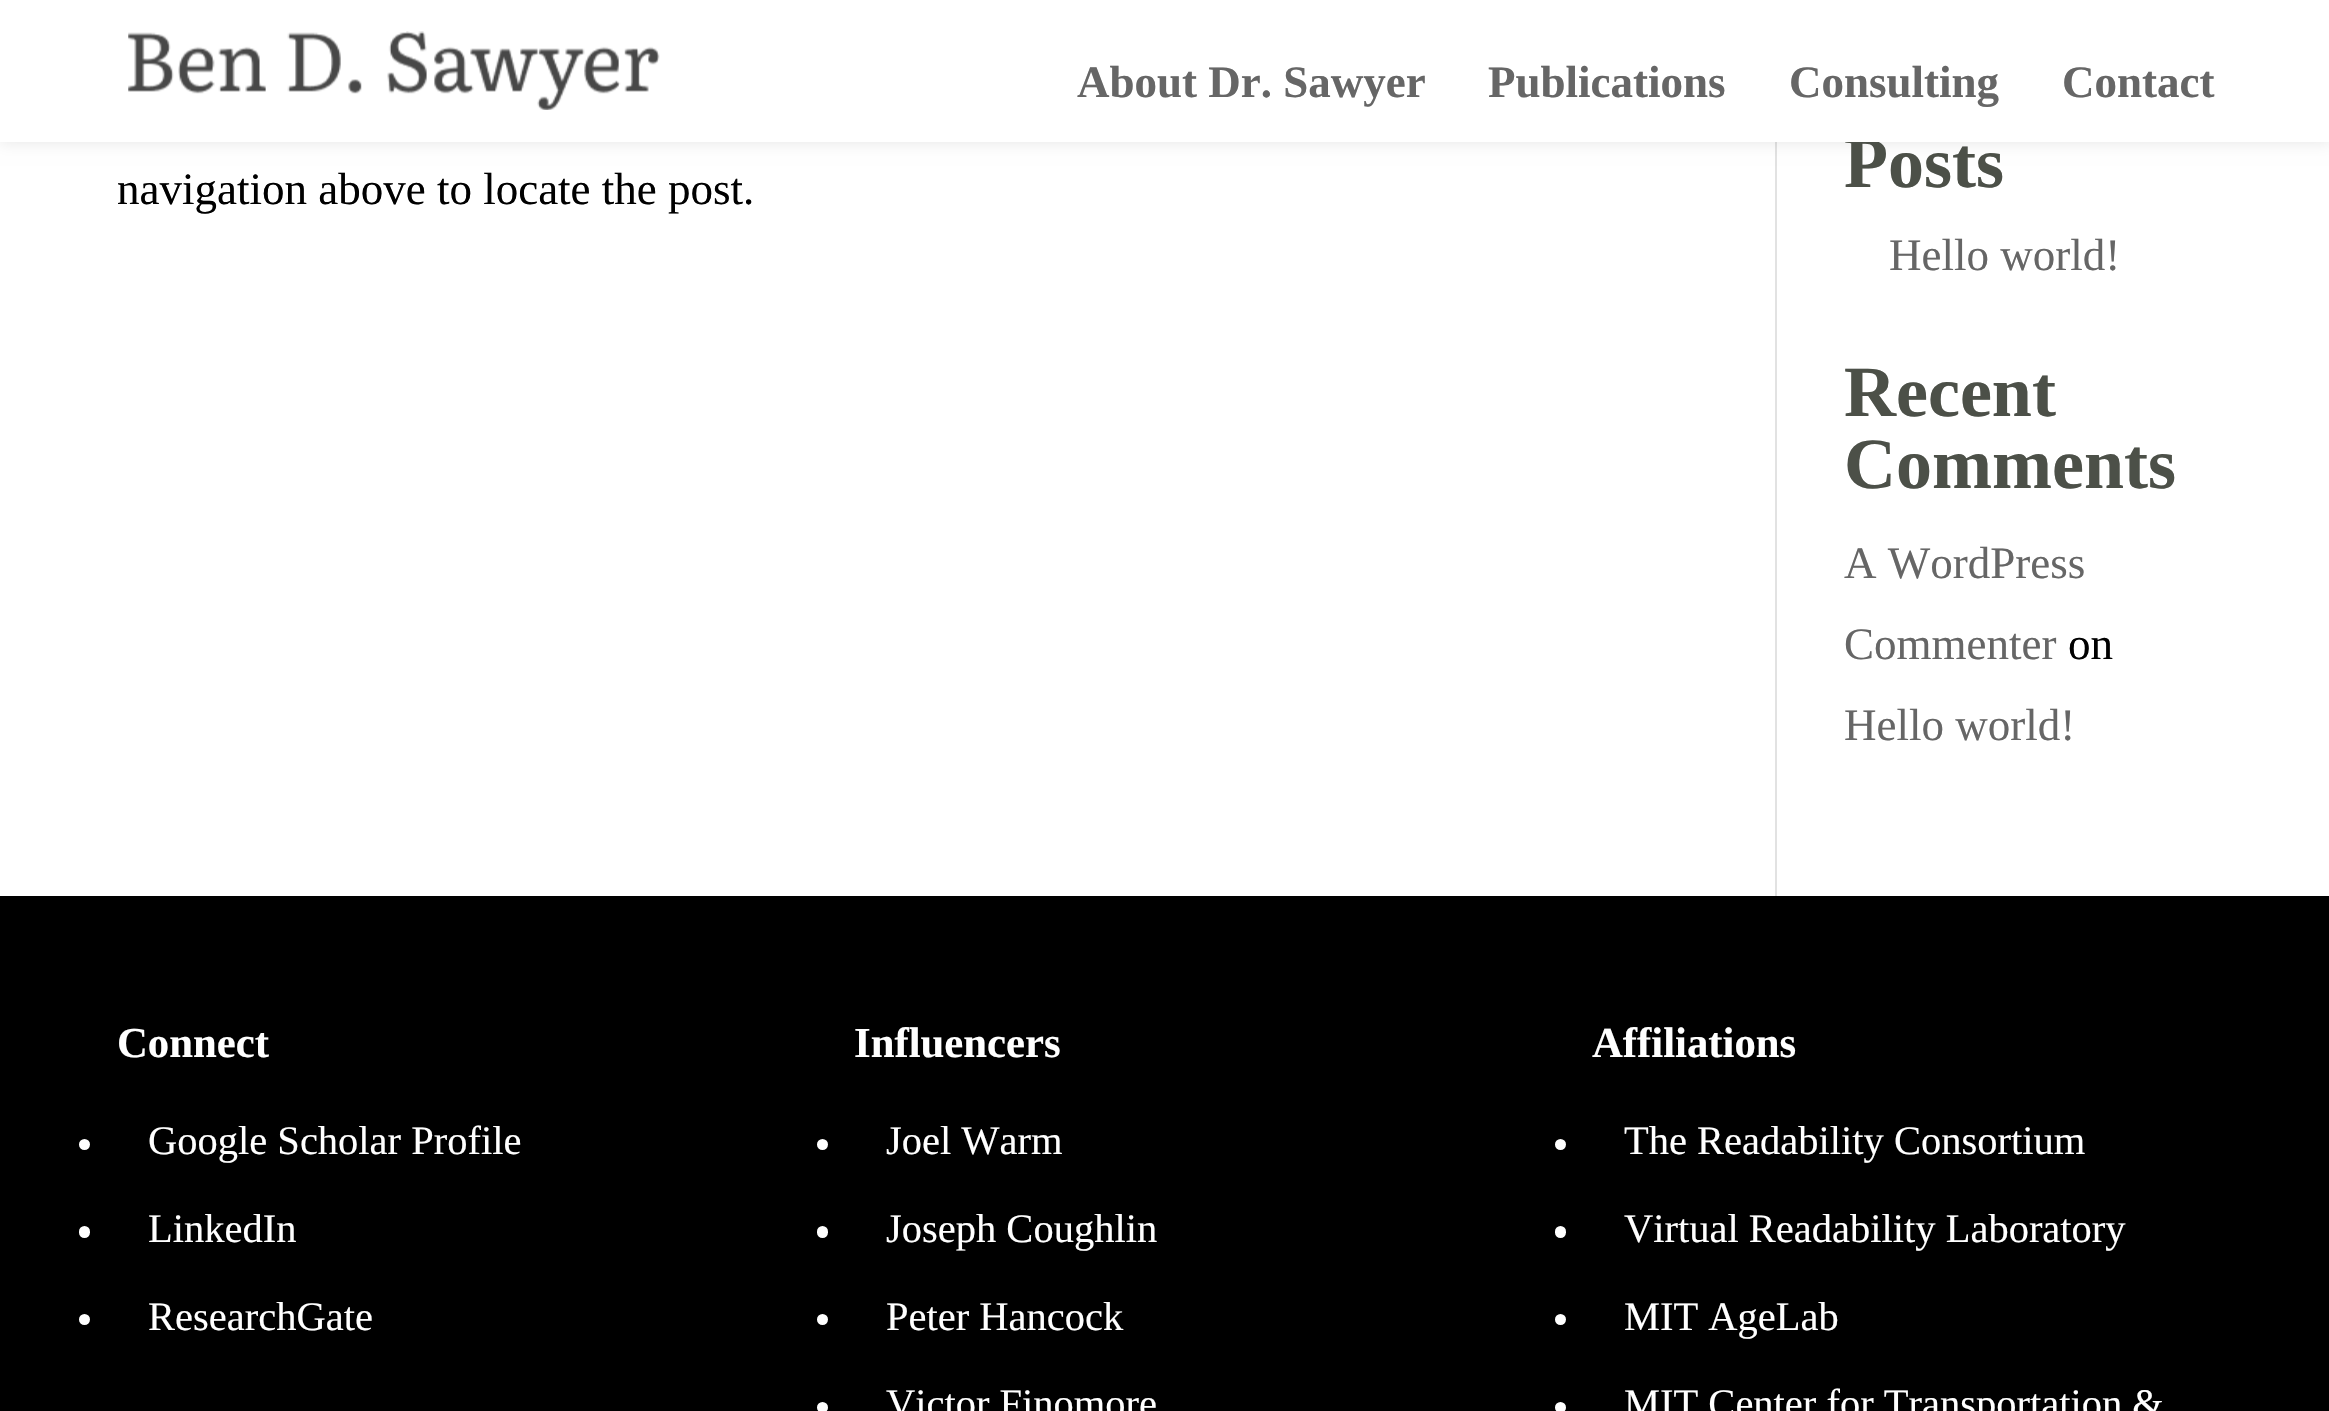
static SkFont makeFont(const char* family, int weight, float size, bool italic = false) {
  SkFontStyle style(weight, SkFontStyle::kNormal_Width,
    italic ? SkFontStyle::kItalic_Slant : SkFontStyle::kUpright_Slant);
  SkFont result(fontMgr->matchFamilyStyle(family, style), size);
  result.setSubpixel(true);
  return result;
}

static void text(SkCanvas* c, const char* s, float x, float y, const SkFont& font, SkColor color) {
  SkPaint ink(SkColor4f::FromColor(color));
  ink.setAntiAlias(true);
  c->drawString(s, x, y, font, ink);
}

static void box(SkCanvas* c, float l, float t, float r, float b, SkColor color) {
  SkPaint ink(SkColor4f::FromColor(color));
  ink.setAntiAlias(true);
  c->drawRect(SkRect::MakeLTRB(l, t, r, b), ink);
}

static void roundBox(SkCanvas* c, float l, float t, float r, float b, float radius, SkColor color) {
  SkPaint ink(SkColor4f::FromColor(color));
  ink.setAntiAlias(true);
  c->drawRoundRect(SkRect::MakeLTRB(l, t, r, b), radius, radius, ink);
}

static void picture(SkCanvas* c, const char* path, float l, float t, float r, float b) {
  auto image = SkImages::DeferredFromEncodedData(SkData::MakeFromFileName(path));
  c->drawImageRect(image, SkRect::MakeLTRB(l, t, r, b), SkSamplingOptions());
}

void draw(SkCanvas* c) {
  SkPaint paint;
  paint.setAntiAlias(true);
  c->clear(0xffffffff);
  box(c, 1775, 142, 1777, 896, 0xffe2e2e2);
  paint.setColor(0x1a000000);
  paint.setMaskFilter(SkMaskFilter::MakeBlur(kNormal_SkBlurStyle, 8));
  c->drawRect(SkRect::MakeLTRB(0, 0, 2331, 142), paint);
  paint.setMaskFilter(nullptr);
  SkFont face1 = makeFont("Liberation Serif", 700, 72);
  text(c, "Posts", 1844, 187, face1, 0xff4c5048);
  box(c, 0, 0, 2329, 142, 0xffffffff);
  picture(c, "img_01.png", 128, 31, 660, 110);
  SkFont face2 = makeFont("Liberation Serif", 700, 45);
  text(c, "About Dr. Sawyer", 1077, 97, face2, 0xff666666);
  text(c, "Publications", 1488, 97, face2, 0xff666666);
  text(c, "Consulting", 1789, 97, face2, 0xff666666);
  text(c, "Contact", 2062, 97, face2, 0xff666666);
  SkFont face3 = makeFont("Liberation Serif", 400, 45);
  text(c, "navigation above to locate the post.", 117, 204, face3, 0xff000000);
  text(c, "Hello world!", 1889, 270, face3, 0xff666666);
  text(c, "Recent", 1844, 416, face1, 0xff4c5048);
  text(c, "Comments", 1844, 488, face1, 0xff4c5048);
  text(c, "A WordPress", 1844, 578, face3, 0xff666666);
  text(c, "Commenter", 1844, 659, face3, 0xff666666);
  text(c, "on", 2068, 659, face3, 0xff000000);
  text(c, "Hello world!", 1844, 740, face3, 0xff666666);
  box(c, 0, 896, 2329, 1411, 0xff000000);
  SkFont face4 = makeFont("Liberation Serif", 700, 42.75f);
  text(c, "Connect", 117, 1057, face4, 0xffffffff);
  paint.setColor(0xffffffff);
  c->drawCircle(84.5f, 1144.5f, 5.5f, paint);
  SkFont face5 = makeFont("Liberation Serif", 400, 40.5f);
  text(c, "Google Scholar Profile", 148, 1154, face5, 0xffffffff);
  roundBox(c, 79, 1226, 90, 1238, 5.5f, 0xffffffff);
  text(c, "LinkedIn", 148, 1242, face5, 0xffffffff);
  c->drawCircle(84.5f, 1319.5f, 5.5f, paint);
  text(c, "ResearchGate", 148, 1330, face5, 0xffffffff);
  text(c, "Influencers", 854, 1057, face4, 0xffffffff);
  c->drawCircle(822.5f, 1144.5f, 5.5f, paint);
  text(c, "Joel Warm", 886, 1154, face5, 0xffffffff);
  roundBox(c, 817, 1226, 828, 1238, 5.5f, 0xffffffff);
  text(c, "Joseph Coughlin", 886, 1242, face5, 0xffffffff);
  c->drawCircle(822.5f, 1319.5f, 5.5f, paint);
  text(c, "Peter Hancock", 886, 1330, face5, 0xffffffff);
  c->drawCircle(822.5f, 1407.5f, 5.5f, paint);
  text(c, "Victor Finomore", 886, 1417, face5, 0xffffffff);
  text(c, "Affiliations", 1592, 1057, face4, 0xffffffff);
  c->drawCircle(1560.5f, 1144.5f, 5.5f, paint);
  text(c, "The Readability Consortium", 1624, 1154, face5, 0xffffffff);
  roundBox(c, 1555, 1226, 1566, 1238, 5.5f, 0xffffffff);
  text(c, "Virtual Readability Laboratory", 1624, 1242, face5, 0xffffffff);
  c->drawCircle(1560.5f, 1319.5f, 5.5f, paint);
  text(c, "MIT AgeLab", 1624, 1330, face5, 0xffffffff);
  c->drawCircle(1560.5f, 1407.5f, 5.5f, paint);
  text(c, "MIT Center for Transportation &", 1624, 1417, face5, 0xffffffff);
}
